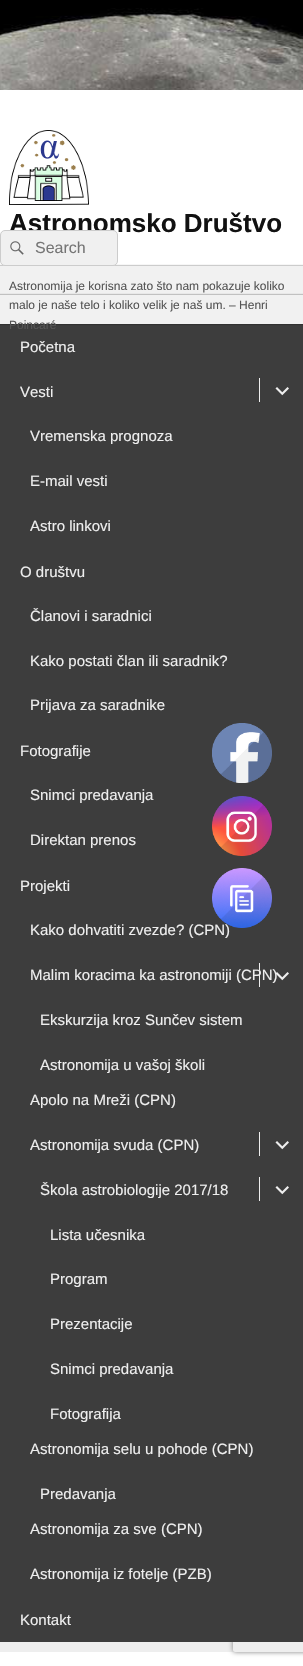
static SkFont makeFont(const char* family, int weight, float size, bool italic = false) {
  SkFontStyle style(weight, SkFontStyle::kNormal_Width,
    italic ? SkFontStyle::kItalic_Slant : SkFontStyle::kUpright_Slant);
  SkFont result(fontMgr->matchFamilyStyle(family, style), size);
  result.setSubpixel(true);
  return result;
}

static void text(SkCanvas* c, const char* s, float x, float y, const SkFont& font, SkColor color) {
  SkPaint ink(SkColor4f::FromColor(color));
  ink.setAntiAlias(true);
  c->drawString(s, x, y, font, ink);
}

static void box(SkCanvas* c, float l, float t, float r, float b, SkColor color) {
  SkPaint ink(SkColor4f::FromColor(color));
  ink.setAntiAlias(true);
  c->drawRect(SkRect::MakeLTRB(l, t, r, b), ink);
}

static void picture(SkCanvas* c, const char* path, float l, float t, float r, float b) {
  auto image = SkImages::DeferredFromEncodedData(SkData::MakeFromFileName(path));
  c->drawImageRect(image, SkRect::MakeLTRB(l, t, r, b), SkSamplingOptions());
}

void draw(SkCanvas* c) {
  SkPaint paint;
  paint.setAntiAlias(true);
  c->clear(0xff000000);
  picture(c, "img_01.png", 0, 8, 303, 90);
  box(c, 0, 1642, 303, 1652, 0xffeeeeee);
  box(c, 0, 90, 303, 266, 0xffffffff);
  picture(c, "img_02.png", 9, 130, 89, 205);
  SkFont face1 = makeFont("Liberation Sans", 700, 26);
  text(c, "Astronomsko Društvo", 9, 232, face1, 0xff111111);
  paint.setColor(0x33000000);
  paint.setMaskFilter(SkMaskFilter::MakeBlur(kNormal_SkBlurStyle, 0.5f));
  c->drawRect(SkRect::MakeLTRB(-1, 265, 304, 296), paint);
  paint.setMaskFilter(nullptr);
  box(c, 0, 266, 303, 295, 0xfff1f1f1);
  box(c, 0, 1652, 303, 1666, 0xffffffff);
  c->save();
  c->clipPath(SkPathBuilder(SkPathFillType::kEvenOdd).moveTo(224, 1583).lineTo(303, 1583).lineTo(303, 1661).lineTo(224, 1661).close().moveTo(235, 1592).lineTo(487, 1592).cubicTo(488, 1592, 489, 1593, 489, 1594).lineTo(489, 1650).cubicTo(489, 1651, 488, 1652, 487, 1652).lineTo(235, 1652).cubicTo(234, 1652, 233, 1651, 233, 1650).lineTo(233, 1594).cubicTo(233, 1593, 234, 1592, 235, 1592).close().detach(), true);
  paint.setColor(0xff808080);
  paint.setMaskFilter(SkMaskFilter::MakeBlur(kNormal_SkBlurStyle, 2.5f));
  c->drawRoundRect(SkRect::MakeLTRB(233, 1592, 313, 1652), 2, 2, paint);
  paint.setMaskFilter(nullptr);
  c->restore();
  box(c, 0, 324, 303, 1642, 0xff3d3d3d);
  paint.setColor(0x33000000);
  paint.setMaskFilter(SkMaskFilter::MakeBlur(kNormal_SkBlurStyle, 0.5f));
  c->drawRect(SkRect::MakeLTRB(-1, 294, 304, 325), paint);
  paint.setMaskFilter(nullptr);
  SkFont face2 = makeFont("Liberation Sans", 400, 12);
  text(c, "Astronomija je korisna zato što nam pokazuje koliko", 9, 290, face2, 0xff555555);
  box(c, 0, 295, 303, 324, 0xfff1f1f1);
  text(c, "malo je naše telo i koliko velik je naš um. – Henri", 9, 309, face2, 0xff555555);
  text(c, "Poincaré", 9, 329, face2, 0xff555555);
  paint.setColor(0xfff0f0f0);
  c->drawRoundRect(SkRect::MakeLTRB(0.5f, 230.5f, 117.5f, 265.5f), 4.5f, 4.5f, paint);
  paint.setStyle(SkPaint::kStroke_Style);
  paint.setStrokeWidth(1);
  paint.setColor(0xffcccccc);
  c->drawRoundRect(SkRect::MakeLTRB(0.5f, 230.5f, 117.5f, 265.5f), 4.5f, 4.5f, paint);
  picture(c, "img_03.png", 10, 241, 24, 255);
  SkFont face3 = makeFont("Liberation Sans", 400, 16);
  text(c, "Search", 35, 253, face3, 0xff757575);
  SkFont face4 = makeFont("Liberation Sans", 400, 15);
  text(c, "Početna", 20, 352, face4, 0xffeeeeee);
  text(c, "Vesti", 20, 397, face4, 0xffeeeeee);
  box(c, 259, 378, 260, 402, 0xffeeeeee);
  picture(c, "img_04.png", 275, 387, 289, 396);
  text(c, "Vremenska prognoza", 30, 441, face4, 0xffeeeeee);
  text(c, "E-mail vesti", 30, 486, face4, 0xffeeeeee);
  text(c, "Astro linkovi", 30, 531, face4, 0xffeeeeee);
  text(c, "O društvu", 20, 577, face4, 0xffeeeeee);
  text(c, "Članovi i saradnici", 30, 621, face4, 0xffeeeeee);
  text(c, "Kako postati član ili saradnik?", 30, 666, face4, 0xffeeeeee);
  text(c, "Prijava za saradnike", 30, 710, face4, 0xffeeeeee);
  text(c, "Fotografije", 20, 756, face4, 0xffeeeeee);
  text(c, "Snimci predavanja", 30, 800, face4, 0xffeeeeee);
  text(c, "Direktan prenos", 30, 845, face4, 0xffeeeeee);
  text(c, "Projekti", 20, 891, face4, 0xffeeeeee);
  text(c, "Kako dohvatiti zvezde? (CPN)", 30, 935, face4, 0xffeeeeee);
  box(c, 259, 963, 260, 987, 0xffeeeeee);
  text(c, "Malim koracima ka astronomiji (CPN)", 30, 980, face4, 0xffeeeeee);
  picture(c, "img_05.png", 276, 972, 289, 981);
  text(c, "Ekskurzija kroz Sunčev sistem", 40, 1025, face4, 0xffeeeeee);
  text(c, "Astronomija u vašoj školi", 40, 1070, face4, 0xffeeeeee);
  text(c, "Apolo na Mreži (CPN)", 30, 1105, face4, 0xffeeeeee);
  text(c, "Astronomija svuda (CPN)", 30, 1150, face4, 0xffeeeeee);
  box(c, 259, 1132, 260, 1156, 0xffeeeeee);
  picture(c, "img_04.png", 275, 1141, 289, 1150);
  text(c, "Škola astrobiologije 2017/18", 40, 1195, face4, 0xffeeeeee);
  box(c, 259, 1177, 260, 1201, 0xffeeeeee);
  picture(c, "img_04.png", 275, 1186, 289, 1195);
  text(c, "Lista učesnika", 50, 1240, face4, 0xffeeeeee);
  text(c, "Program", 50, 1284, face4, 0xffeeeeee);
  text(c, "Prezentacije", 50, 1329, face4, 0xffeeeeee);
  text(c, "Snimci predavanja", 50, 1374, face4, 0xffeeeeee);
  text(c, "Fotografija", 50, 1419, face4, 0xffeeeeee);
  text(c, "Astronomija selu u pohode (CPN)", 30, 1454, face4, 0xffeeeeee);
  text(c, "Predavanja", 40, 1499, face4, 0xffeeeeee);
  text(c, "Astronomija za sve (CPN)", 30, 1534, face4, 0xffeeeeee);
  text(c, "Astronomija iz fotelje (PZB)", 30, 1579, face4, 0xffeeeeee);
  text(c, "Kontakt", 20, 1625, face4, 0xffeeeeee);
  picture(c, "img_06.png", 212, 723, 272, 783);
  picture(c, "img_07.png", 212, 796, 272, 856);
  picture(c, "img_08.png", 212, 868, 272, 928);
}
